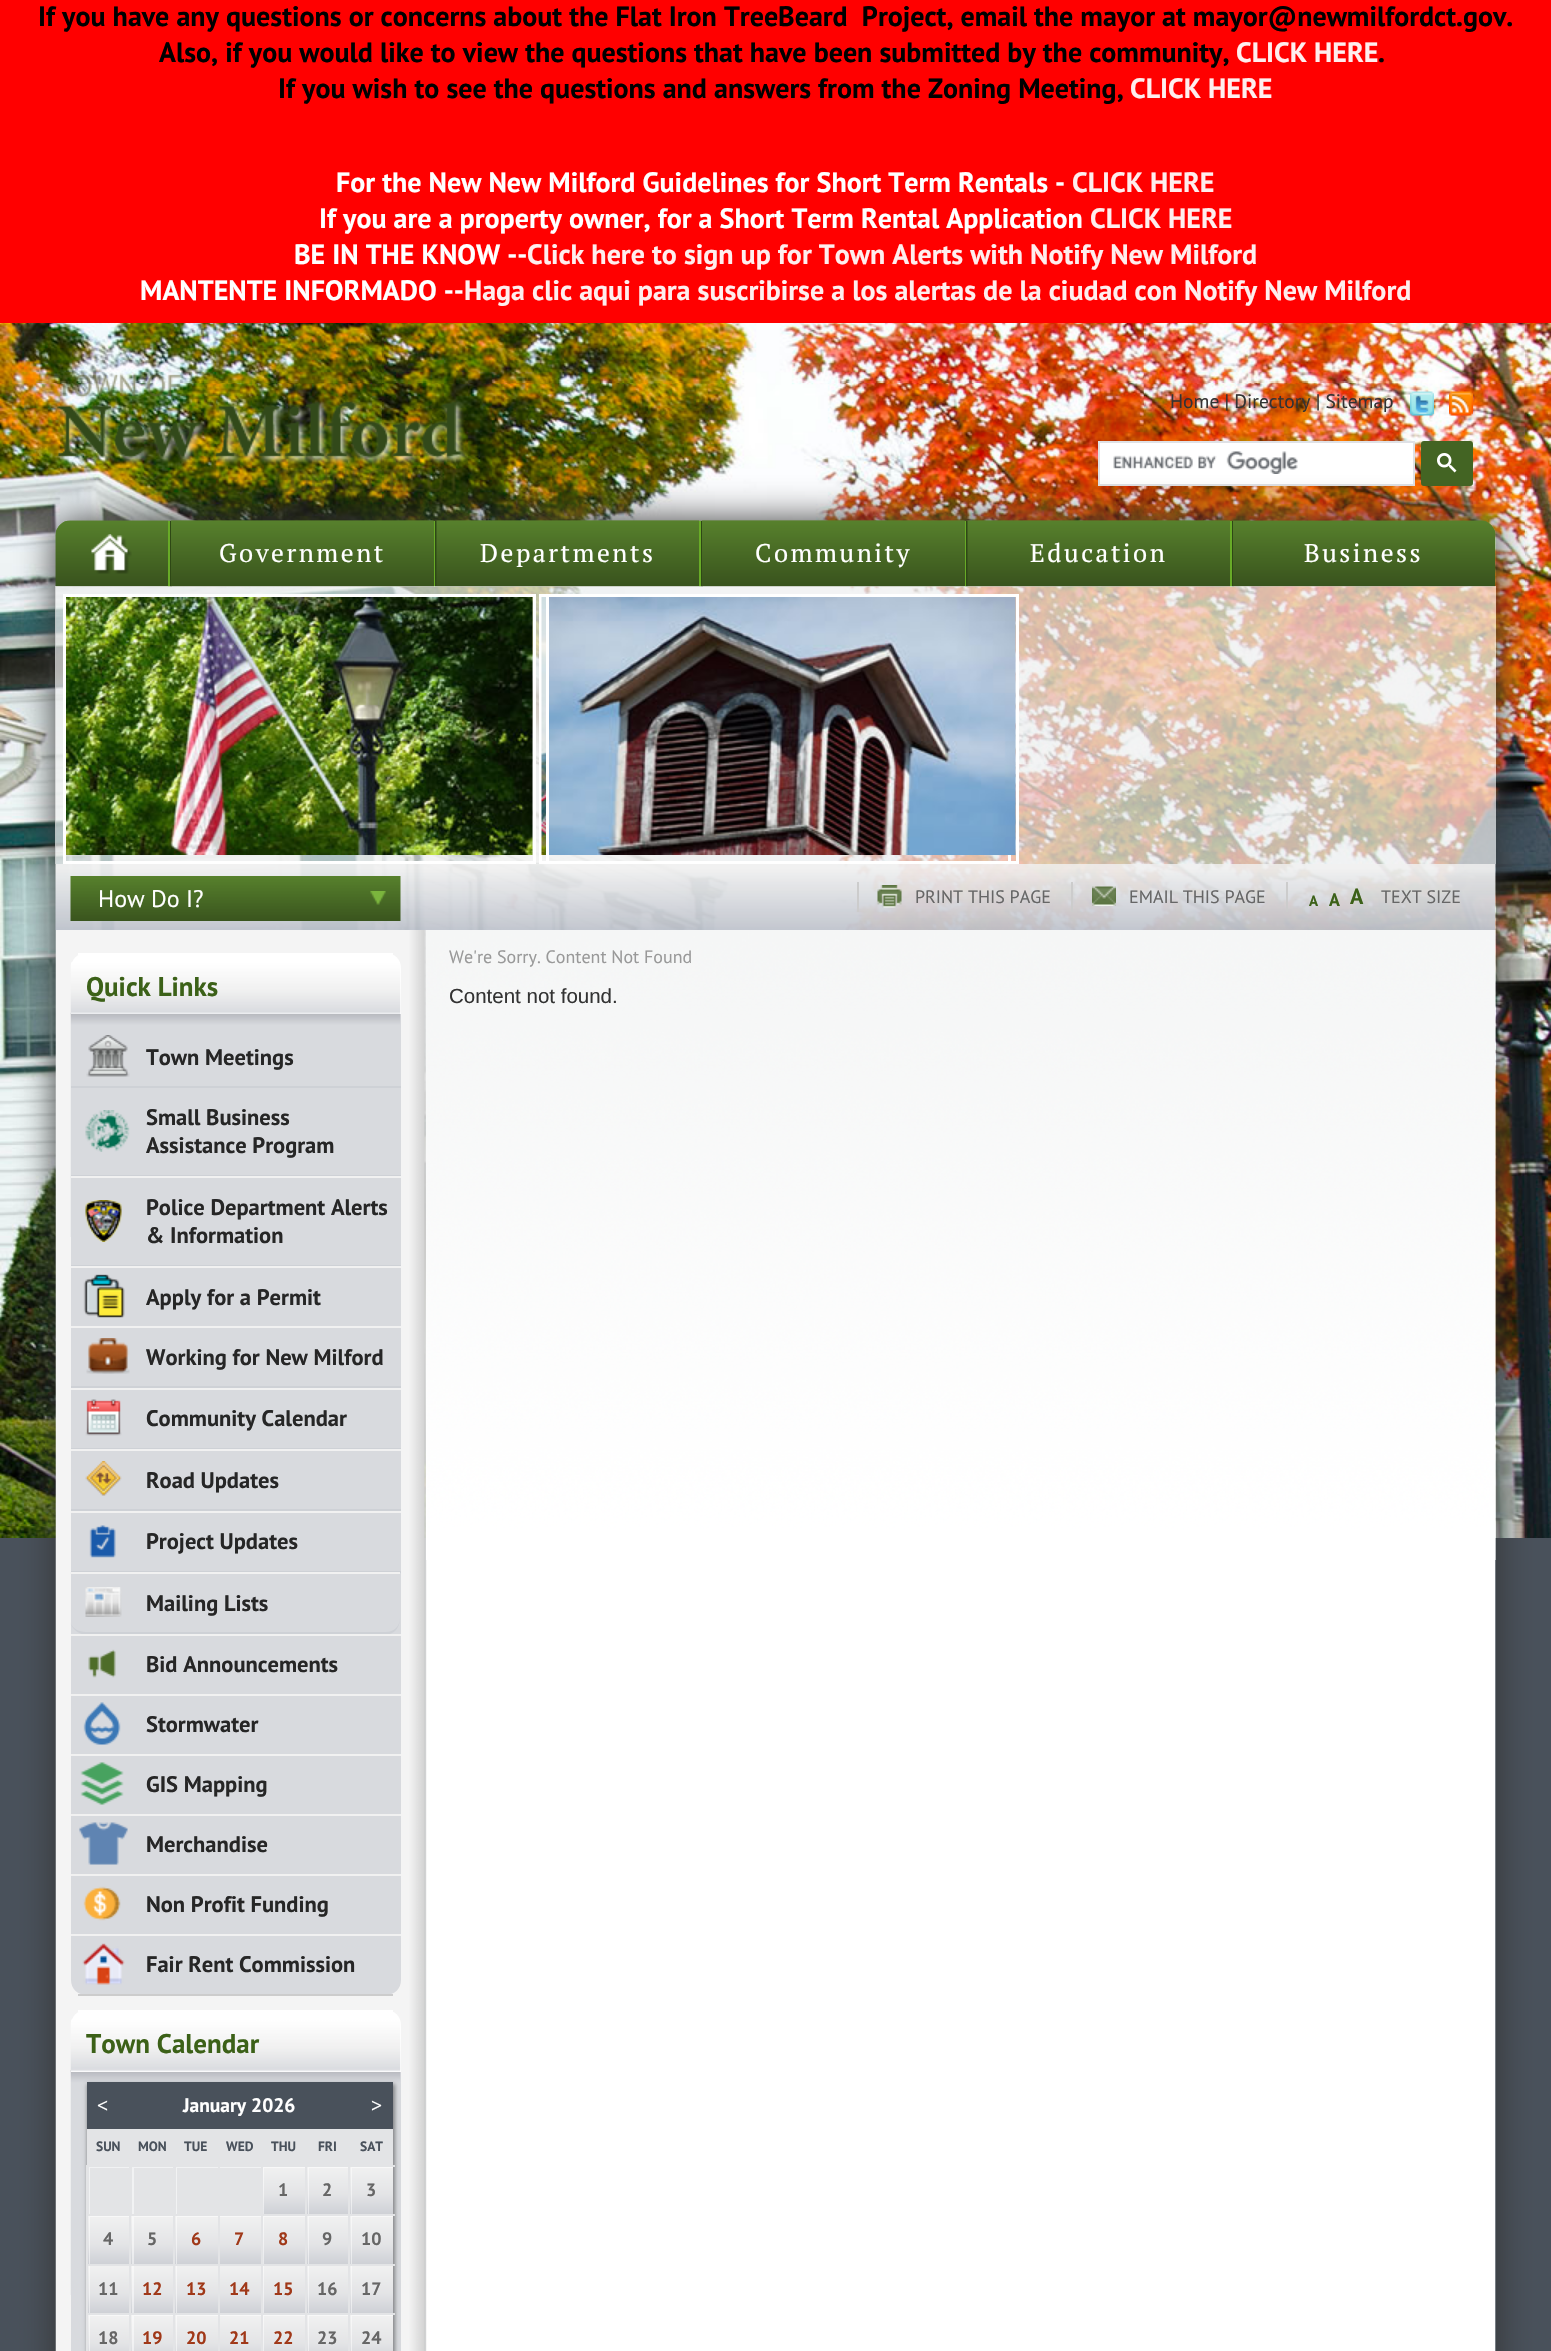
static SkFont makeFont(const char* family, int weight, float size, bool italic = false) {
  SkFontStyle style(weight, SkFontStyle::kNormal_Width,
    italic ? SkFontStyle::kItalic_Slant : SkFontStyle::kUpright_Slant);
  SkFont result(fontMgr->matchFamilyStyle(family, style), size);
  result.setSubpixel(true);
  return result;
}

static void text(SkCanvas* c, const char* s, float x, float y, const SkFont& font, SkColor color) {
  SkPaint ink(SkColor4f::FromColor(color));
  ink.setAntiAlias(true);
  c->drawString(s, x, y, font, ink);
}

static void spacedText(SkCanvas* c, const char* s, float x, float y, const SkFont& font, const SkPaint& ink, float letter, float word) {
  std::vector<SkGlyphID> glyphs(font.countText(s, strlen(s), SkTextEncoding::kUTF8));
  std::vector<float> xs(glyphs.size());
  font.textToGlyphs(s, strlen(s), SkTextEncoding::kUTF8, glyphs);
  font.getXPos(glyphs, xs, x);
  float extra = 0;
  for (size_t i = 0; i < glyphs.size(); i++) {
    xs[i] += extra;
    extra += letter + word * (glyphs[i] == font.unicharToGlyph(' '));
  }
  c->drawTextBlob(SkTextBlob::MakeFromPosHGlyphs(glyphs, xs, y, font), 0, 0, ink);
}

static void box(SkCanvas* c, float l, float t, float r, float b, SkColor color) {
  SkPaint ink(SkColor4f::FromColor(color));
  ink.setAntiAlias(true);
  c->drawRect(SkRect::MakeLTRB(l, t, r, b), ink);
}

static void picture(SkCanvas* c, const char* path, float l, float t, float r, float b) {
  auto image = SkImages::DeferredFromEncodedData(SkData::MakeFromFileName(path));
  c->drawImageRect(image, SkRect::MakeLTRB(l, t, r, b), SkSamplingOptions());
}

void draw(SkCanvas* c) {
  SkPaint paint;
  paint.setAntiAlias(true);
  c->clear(0xff49515b);
  box(c, 0, 0, 1551, 323, 0xffff0000);
  SkFont face1 = makeFont("PT Sans", 700, 28);
  text(c, "If you have any questions or concerns about the Flat Iron TreeBeard  Project, email the mayor at mayor@newmilfordct.gov.", 38, 26, face1, 0xff000000);
  text(c, "Also, if you would like to view the questions that have been submitted by the community,", 159, 62, face1, 0xff000000);
  text(c, "CLICK HERE", 1236, 62, face1, 0xffffeeee);
  text(c, ".", 1378, 62, face1, 0xff000000);
  text(c, "If you wish to see the questions and answers from the Zoning Meeting,", 278, 98, face1, 0xff000000);
  text(c, "CLICK HERE", 1130, 98, face1, 0xffffeeee);
  text(c, "For the New New Milford Guidelines for Short Term Rentals -", 336, 192, face1, 0xffffffff);
  text(c, "CLICK HERE", 1072, 192, face1, 0xffffeeee);
  text(c, "If you are a property owner, for a Short Term Rental Application", 319, 228, face1, 0xffffffff);
  text(c, "CLICK HERE", 1090, 228, face1, 0xffffeeee);
  text(c, "BE IN THE KNOW --", 294, 264, face1, 0xffffffff);
  text(c, "Click here to sign up for Town Alerts with Notify New Milford", 527, 264, face1, 0xffffeeee);
  text(c, "MANTENTE INFORMADO --", 140, 300, face1, 0xffffffff);
  text(c, "Haga clic aqui para suscribirse a los alertas de la ciudad con Notify New Milford", 464, 300, face1, 0xffffeeee);
  picture(c, "img_01.png", 0, 323, 1551, 1538);
  picture(c, "img_02.png", 56, 373, 468, 492);
  SkFont face2 = makeFont("PT Sans", 400, 19.5f);
  text(c, "Home | Directory | Sitemap", 1170, 408, face2, 0xff333333);
  picture(c, "img_03.png", 1410, 391, 1434, 416);
  picture(c, "img_04.png", 1449, 391, 1473, 416);
  paint.setColor(0xffffffff);
  c->drawRect(SkRect::MakeLTRB(1099, 442, 1414, 485), paint);
  paint.setStyle(SkPaint::kStroke_Style);
  paint.setStrokeWidth(2);
  paint.setColor(0xffdfe1e5);
  c->drawRect(SkRect::MakeLTRB(1099, 442, 1414, 485), paint);
  picture(c, "img_05.png", 1113, 451, 1298, 474);
  paint.setStyle(SkPaint::kFill_Style);
  paint.setColor(0xff436423);
  c->drawRoundRect(SkRect::MakeLTRB(1422, 442, 1472, 485), 2, 2, paint);
  paint.setStyle(SkPaint::kStroke_Style);
  c->drawRoundRect(SkRect::MakeLTRB(1422, 442, 1472, 485), 2, 2, paint);
  picture(c, "img_06.png", 1437, 453, 1457, 473);
  c->save();
  c->clipPath(SkPathBuilder(SkPathFillType::kEvenOdd).moveTo(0, 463).lineTo(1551, 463).lineTo(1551, 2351).lineTo(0, 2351).close().moveTo(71, 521).lineTo(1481, 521).cubicTo(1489.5f, 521, 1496, 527.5f, 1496, 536).lineTo(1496, 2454).cubicTo(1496, 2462.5f, 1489.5f, 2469, 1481, 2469).lineTo(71, 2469).cubicTo(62.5f, 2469, 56, 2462.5f, 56, 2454).lineTo(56, 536).cubicTo(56, 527.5f, 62.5f, 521, 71, 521).close().detach(), true);
  paint.setStyle(SkPaint::kFill_Style);
  paint.setColor(0xff333333);
  paint.setMaskFilter(SkMaskFilter::MakeBlur(kNormal_SkBlurStyle, 19));
  c->drawRoundRect(SkRect::MakeLTRB(56, 521, 1496, 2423), 15, 15, paint);
  paint.setMaskFilter(nullptr);
  c->restore();
  picture(c, "img_07.png", 55, 520, 1496, 587);
  box(c, 168, 521, 170, 587, 0xff68ab27);
  picture(c, "img_08.png", 55, 520, 168, 587);
  picture(c, "img_09.png", 91, 534, 132, 574);
  box(c, 434, 521, 435, 587, 0xff68ab27);
  box(c, 170, 521, 172, 587, 0xff2e4815);
  picture(c, "img_10.png", 171, 520, 434, 587);
  SkFont face3 = makeFont("PT Serif", 400, 25.5f);
  paint.setColor(0xffffffff);
  spacedText(c, "Government", 219, 562, face3, paint, 2.5f, 0);
  box(c, 699, 521, 701, 587, 0xff68ab27);
  box(c, 435, 521, 437, 587, 0xff2e4815);
  picture(c, "img_11.png", 436, 520, 699, 587);
  spacedText(c, "Departments", 480, 562, face3, paint, 2.5f, 0);
  box(c, 965, 521, 966, 587, 0xff68ab27);
  box(c, 701, 521, 703, 587, 0xff2e4815);
  picture(c, "img_12.png", 702, 520, 965, 587);
  spacedText(c, "Community", 755, 562, face3, paint, 2.5f, 0);
  box(c, 1230, 521, 1232, 587, 0xff68ab27);
  box(c, 966, 521, 968, 587, 0xff2e4815);
  picture(c, "img_13.png", 967, 520, 1230, 587);
  spacedText(c, "Education", 1030, 562, face3, paint, 2.5f, 0);
  box(c, 1232, 521, 1234, 587, 0xff2e4815);
  picture(c, "img_14.png", 1233, 520, 1496, 587);
  spacedText(c, "Business", 1304, 562, face3, paint, 2.5f, 0);
  box(c, 55, 586, 1496, 864, 0xb3efefef);
  paint.setStyle(SkPaint::kStroke_Style);
  paint.setStrokeWidth(3);
  c->drawRect(SkRect::MakeLTRB(64.5f, 595.5f, 534.5f, 862.5f), paint);
  picture(c, "img_15.png", 66, 597, 533, 855);
  c->drawRect(SkRect::MakeLTRB(540.5f, 595.5f, 1009.5f, 862.5f), paint);
  picture(c, "img_16.png", 541, 597, 546, 855);
  c->drawRect(SkRect::MakeLTRB(547.5f, 595.5f, 1017.5f, 862.5f), paint);
  picture(c, "img_17.png", 549, 597, 1016, 855);
  picture(c, "img_18.png", 55, 864, 1496, 930);
  picture(c, "img_19.png", 70, 876, 401, 921);
  picture(c, "img_20.png", 370, 891, 386, 905);
  SkFont face4 = makeFont("PT Sans", 400, 24);
  text(c, "How Do I?", 98, 907, face4, 0xffffffff);
  box(c, 857, 882, 859, 912, 0xffcccccc);
  picture(c, "img_21.png", 877, 885, 902, 908);
  SkFont face5 = makeFont("PT Sans", 400, 18);
  text(c, "PRINT THIS PAGE", 915, 903, face5, 0xff666666);
  box(c, 1071, 882, 1073, 912, 0xffcccccc);
  picture(c, "img_22.png", 1092, 886, 1116, 906);
  text(c, "EMAIL THIS PAGE", 1129, 903, face5, 0xff666666);
  box(c, 1286, 882, 1288, 912, 0xffcccccc);
  SkFont face6 = makeFont("PT Sans", 700, 15);
  text(c, "A", 1309, 906, face6, 0xff3c6118);
  SkFont face7 = makeFont("PT Sans", 700, 18);
  text(c, "A", 1329, 906, face7, 0xff3c6118);
  SkFont face8 = makeFont("PT Sans", 700, 22);
  text(c, "A", 1350, 904, face8, 0xff3c6118);
  text(c, "TEXT SIZE", 1381, 903, face5, 0xff666666);
  picture(c, "img_23.png", 55, 930, 1496, 2351);
  paint.setStyle(SkPaint::kFill_Style);
  paint.setColor(0xffd8dade);
  c->drawPath(SkPathBuilder().moveTo(71, 1013).lineTo(401, 1013).lineTo(401, 1980).cubicTo(401, 1988.5f, 394.5f, 1995, 386, 1995).lineTo(86, 1995).cubicTo(77.5f, 1995, 71, 1988.5f, 71, 1980).close().detach(), paint);
  picture(c, "img_24.png", 70, 1012, 401, 1237);
  box(c, 78, 1994, 393, 1996, 0xffcccccc);
  paint.setColor(0xffffffff);
  c->drawPath(SkPathBuilder().moveTo(86, 953).lineTo(386, 953).cubicTo(394.5f, 953, 401, 959.5f, 401, 968).lineTo(401, 1014).lineTo(71, 1014).lineTo(71, 968).cubicTo(71, 959.5f, 77.5f, 953, 86, 953).close().detach(), paint);
  picture(c, "img_25.png", 70, 962, 401, 1014);
  box(c, 78, 953, 393, 955, 0xffffffff);
  SkFont face9 = makeFont("PT Sans", 700, 27);
  text(c, "Quick Links", 86, 996, face9, 0xff3c6118);
  picture(c, "img_26.png", 86, 1035, 130, 1077);
  box(c, 71, 1086, 401, 1088, 0xffced1d6);
  SkFont face10 = makeFont("PT Sans", 700, 22.5f);
  text(c, "Town Meetings", 146, 1065, face10, 0xff262626);
  picture(c, "img_27.png", 85, 1110, 130, 1152);
  box(c, 71, 1175, 401, 1176, 0xffced1d6);
  text(c, "Small Business", 146, 1125, face10, 0xff262626);
  text(c, "Assistance Program", 146, 1153, face10, 0xff262626);
  picture(c, "img_28.png", 85, 1200, 122, 1242);
  box(c, 71, 1176, 401, 1178, 0xfff1f1f1);
  box(c, 71, 1265, 401, 1266, 0xffced1d6);
  text(c, "Police Department Alerts", 146, 1215, face10, 0xff262626);
  text(c, "& Information", 146, 1243, face10, 0xff262626);
  picture(c, "img_29.png", 83, 1274, 125, 1318);
  box(c, 71, 1266, 401, 1268, 0xfff1f1f1);
  text(c, "Apply for a Permit", 146, 1305, face10, 0xff262626);
  picture(c, "img_30.png", 86, 1338, 130, 1374);
  box(c, 71, 1326, 401, 1328, 0xfff1f1f1);
  box(c, 71, 1386, 401, 1388, 0xffced1d6);
  text(c, "Working for New Milford", 146, 1365, face10, 0xff262626);
  picture(c, "img_31.png", 85, 1399, 122, 1436);
  box(c, 71, 1388, 401, 1390, 0xfff1f1f1);
  box(c, 71, 1448, 401, 1449, 0xffced1d6);
  text(c, "Community Calendar", 146, 1426, face10, 0xff262626);
  picture(c, "img_32.png", 85, 1461, 122, 1496);
  box(c, 71, 1449, 401, 1451, 0xfff1f1f1);
  box(c, 71, 1509, 401, 1511, 0xffced1d6);
  text(c, "Road Updates", 146, 1488, face10, 0xff262626);
  picture(c, "img_33.png", 89, 1525, 116, 1558);
  box(c, 71, 1511, 401, 1513, 0xfff1f1f1);
  box(c, 71, 1571, 401, 1573, 0xffced1d6);
  text(c, "Project Updates", 146, 1549, face10, 0xff262626);
  picture(c, "img_34.png", 85, 1587, 122, 1617);
  box(c, 70, 1572, 400, 1574, 0xfff1f1f1);
  paint.setColor(0xffced1d6);
  c->drawPath(SkPathBuilder().moveTo(390, 1634).cubicTo(396, 1632, 400, 1626, 400, 1618).cubicTo(400, 1626, 394, 1632, 386, 1632).lineTo(86, 1632).cubicTo(78, 1632, 72, 1628, 70, 1622).cubicTo(72, 1628, 76, 1632, 82, 1634).close().detach(), paint);
  text(c, "Mailing Lists", 146, 1611, face10, 0xff262626);
  picture(c, "img_35.png", 88, 1649, 116, 1678);
  box(c, 71, 1634, 401, 1636, 0xfff1f1f1);
  text(c, "Bid Announcements", 146, 1672, face10, 0xff262626);
  picture(c, "img_36.png", 83, 1702, 121, 1745);
  box(c, 71, 1694, 401, 1696, 0xfff1f1f1);
  text(c, "Stormwater", 146, 1732, face10, 0xff262626);
  picture(c, "img_37.png", 80, 1762, 124, 1805);
  box(c, 71, 1754, 401, 1756, 0xfff1f1f1);
  text(c, "GIS Mapping", 146, 1792, face10, 0xff262626);
  picture(c, "img_38.png", 79, 1822, 128, 1865);
  box(c, 71, 1814, 401, 1816, 0xfff1f1f1);
  text(c, "Merchandise", 146, 1852, face10, 0xff262626);
  picture(c, "img_39.png", 83, 1886, 121, 1921);
  box(c, 71, 1874, 401, 1876, 0xfff1f1f1);
  text(c, "Non Profit Funding", 146, 1912, face10, 0xff262626);
  picture(c, "img_40.png", 82, 1943, 125, 1985);
  box(c, 71, 1934, 401, 1936, 0xfff1f1f1);
  text(c, "Fair Rent Commission", 146, 1972, face10, 0xff262626);
  box(c, 71, 2072, 401, 2351, 0xffd8dade);
  picture(c, "img_41.png", 70, 2070, 401, 2295);
  paint.setColor(0xffffffff);
  c->drawPath(SkPathBuilder().moveTo(86, 2010).lineTo(386, 2010).cubicTo(394.5f, 2010, 401, 2016.5f, 401, 2025).lineTo(401, 2072).lineTo(71, 2072).lineTo(71, 2025).cubicTo(71, 2016.5f, 77.5f, 2010, 86, 2010).close().detach(), paint);
  picture(c, "img_42.png", 70, 2019, 401, 2072);
  box(c, 78, 2010, 393, 2012, 0xffffffff);
  text(c, "Town Calendar", 86, 2053, face9, 0xff3c6118);
  paint.setColor(0x66000000);
  paint.setMaskFilter(SkMaskFilter::MakeBlur(kNormal_SkBlurStyle, 2));
  c->drawRect(SkRect::MakeLTRB(87, 2084, 395, 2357), paint);
  paint.setMaskFilter(nullptr);
  box(c, 87, 2082, 393, 2129, 0xff49515b);
  SkFont face11 = makeFont("Liberation Serif", 700, 19.5f);
  text(c, "<", 97, 2112, face11, 0xffffffff);
  SkFont face12 = makeFont("PT Sans", 700, 19.5f);
  text(c, "January 2026", 183, 2112, face12, 0xffffffff);
  text(c, ">", 371, 2112, face11, 0xffffffff);
  box(c, 87, 2129, 393, 2165, 0xffe3e4e6);
  SkFont face13 = makeFont("PT Sans", 700, 13.5f);
  text(c, "SUN", 96, 2151, face13, 0xff49515b);
  text(c, "MON", 138, 2151, face13, 0xff49515b);
  text(c, "TUE", 184, 2151, face13, 0xff49515b);
  text(c, "WED", 226, 2151, face13, 0xff49515b);
  text(c, "THU", 271, 2151, face13, 0xff49515b);
  text(c, "FRI", 318, 2151, face13, 0xff49515b);
  text(c, "SAT", 360, 2151, face13, 0xff49515b);
  box(c, 88, 2167, 129, 2214, 0xffe3e4e6);
  c->save();
  c->clipRect(SkRect::MakeLTRB(89, 2166, 131, 2214));
  paint.setColor(0xfff1f2f3);
  c->drawPath(SkPathBuilder(SkPathFillType::kEvenOdd).moveTo(-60, 2018).lineTo(279, 2018).lineTo(279, 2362).lineTo(-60, 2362).close().moveTo(90, 2168).lineTo(132, 2168).lineTo(132, 2216).lineTo(90, 2216).close().detach(), paint);
  c->restore();
  box(c, 131, 2167, 173, 2214, 0xffe3e4e6);
  c->save();
  c->clipRect(SkRect::MakeLTRB(132, 2166, 174, 2214));
  c->drawPath(SkPathBuilder(SkPathFillType::kEvenOdd).moveTo(-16, 2018).lineTo(322, 2018).lineTo(322, 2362).lineTo(-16, 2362).close().moveTo(134, 2168).lineTo(176, 2168).lineTo(176, 2216).lineTo(134, 2216).close().detach(), paint);
  c->restore();
  box(c, 175, 2167, 218, 2214, 0xffe3e4e6);
  c->save();
  c->clipRect(SkRect::MakeLTRB(176, 2166, 218, 2214));
  c->drawPath(SkPathBuilder(SkPathFillType::kEvenOdd).moveTo(27, 2018).lineTo(366, 2018).lineTo(366, 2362).lineTo(27, 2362).close().moveTo(177, 2168).lineTo(219, 2168).lineTo(219, 2216).lineTo(177, 2216).close().detach(), paint);
  c->restore();
  box(c, 220, 2168, 261, 2214, 0xffe3e4e6);
  c->save();
  c->clipRect(SkRect::MakeLTRB(219, 2166, 261, 2214));
  c->drawPath(SkPathBuilder(SkPathFillType::kEvenOdd).moveTo(70, 2018).lineTo(410, 2018).lineTo(410, 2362).lineTo(70, 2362).close().moveTo(220, 2168).lineTo(262, 2168).lineTo(262, 2216).lineTo(220, 2216).close().detach(), paint);
  c->restore();
  {
    const SkColor colors[] = {0xfff1f1f1, 0xffe3e4e6, 0xffced1d6};
    const float stops[] = {0, 0.6f, 1};
    const SkPoint ends[] = {{284, 2166}, {284, 2214}};
    paint.setShader(SkGradientShader::MakeLinear(ends, colors, stops, 3, SkTileMode::kClamp));
    paint.setAlpha(255);
  }
  c->drawRect(SkRect::MakeLTRB(263, 2167, 305, 2214), paint);
  c->save();
  c->clipRect(SkRect::MakeLTRB(263, 2166, 306, 2214));
  paint.setShader(nullptr);
  paint.setColor(0x80ffffff);
  c->drawPath(SkPathBuilder(SkPathFillType::kEvenOdd).moveTo(114, 2018).lineTo(454, 2018).lineTo(454, 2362).lineTo(114, 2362).close().moveTo(264, 2168).lineTo(308, 2168).lineTo(308, 2216).lineTo(264, 2216).close().detach(), paint);
  c->restore();
  {
    const SkColor colors[] = {0xfff1f1f1, 0xffe3e4e6, 0xffced1d6};
    const float stops[] = {0, 0.6f, 1};
    const SkPoint ends[] = {{329, 2166}, {329, 2214}};
    paint.setShader(SkGradientShader::MakeLinear(ends, colors, stops, 3, SkTileMode::kClamp));
    paint.setAlpha(255);
  }
  c->drawRect(SkRect::MakeLTRB(307, 2167, 348, 2214), paint);
  c->save();
  c->clipRect(SkRect::MakeLTRB(308, 2166, 350, 2214));
  paint.setShader(nullptr);
  paint.setColor(0x80ffffff);
  c->drawPath(SkPathBuilder(SkPathFillType::kEvenOdd).moveTo(159, 2018).lineTo(498, 2018).lineTo(498, 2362).lineTo(159, 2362).close().moveTo(309, 2168).lineTo(351, 2168).lineTo(351, 2216).lineTo(309, 2216).close().detach(), paint);
  c->restore();
  {
    const SkColor colors[] = {0xfff1f1f1, 0xffe3e4e6, 0xffced1d6};
    const float stops[] = {0, 0.6f, 1};
    const SkPoint ends[] = {{372, 2166}, {372, 2214}};
    paint.setShader(SkGradientShader::MakeLinear(ends, colors, stops, 3, SkTileMode::kClamp));
    paint.setAlpha(255);
  }
  c->drawRect(SkRect::MakeLTRB(350, 2167, 393, 2214), paint);
  c->save();
  c->clipRect(SkRect::MakeLTRB(351, 2166, 393, 2214));
  paint.setShader(nullptr);
  paint.setColor(0x80ffffff);
  c->drawPath(SkPathBuilder(SkPathFillType::kEvenOdd).moveTo(202, 2018).lineTo(542, 2018).lineTo(542, 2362).lineTo(202, 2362).close().moveTo(352, 2168).lineTo(394, 2168).lineTo(394, 2216).lineTo(352, 2216).close().detach(), paint);
  c->restore();
  box(c, 348, 2165, 395, 2167, 0xffe3e4e6);
  box(c, 348, 2214, 395, 2216, 0xffe3e4e6);
  {
    const SkColor colors[] = {0xfff1f1f1, 0xffe3e4e6, 0xffced1d6};
    const float stops[] = {0, 0.6f, 1};
    const SkPoint ends[] = {{329, 2216}, {329, 2264}};
    paint.setShader(SkGradientShader::MakeLinear(ends, colors, stops, 3, SkTileMode::kClamp));
    paint.setAlpha(255);
  }
  c->drawRect(SkRect::MakeLTRB(307, 2216, 348, 2264), paint);
  c->save();
  c->clipRect(SkRect::MakeLTRB(308, 2216, 350, 2264));
  paint.setShader(nullptr);
  paint.setColor(0x80ffffff);
  c->drawPath(SkPathBuilder(SkPathFillType::kEvenOdd).moveTo(159, 2067).lineTo(498, 2067).lineTo(498, 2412).lineTo(159, 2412).close().moveTo(309, 2217).lineTo(351, 2217).lineTo(351, 2265).lineTo(309, 2265).close().detach(), paint);
  c->restore();
  {
    const SkColor colors[] = {0xfff1f1f1, 0xffe3e4e6, 0xffced1d6};
    const float stops[] = {0, 0.6f, 1};
    const SkPoint ends[] = {{284, 2265}, {284, 2313}};
    paint.setShader(SkGradientShader::MakeLinear(ends, colors, stops, 3, SkTileMode::kClamp));
    paint.setAlpha(255);
  }
  c->drawRect(SkRect::MakeLTRB(263, 2266, 305, 2313), paint);
  c->save();
  c->clipRect(SkRect::MakeLTRB(263, 2265, 306, 2313));
  paint.setShader(nullptr);
  paint.setColor(0x80ffffff);
  c->drawPath(SkPathBuilder(SkPathFillType::kEvenOdd).moveTo(114, 2116).lineTo(454, 2116).lineTo(454, 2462).lineTo(114, 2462).close().moveTo(264, 2266).lineTo(308, 2266).lineTo(308, 2314).lineTo(264, 2314).close().detach(), paint);
  c->restore();
  {
    const SkColor colors[] = {0xfff1f1f1, 0xffe3e4e6, 0xffced1d6};
    const float stops[] = {0, 0.6f, 1};
    const SkPoint ends[] = {{329, 2265}, {329, 2313}};
    paint.setShader(SkGradientShader::MakeLinear(ends, colors, stops, 3, SkTileMode::kClamp));
    paint.setAlpha(255);
  }
  c->drawRect(SkRect::MakeLTRB(307, 2266, 348, 2313), paint);
  c->save();
  c->clipRect(SkRect::MakeLTRB(308, 2265, 350, 2313));
  paint.setShader(nullptr);
  paint.setColor(0x80ffffff);
  c->drawPath(SkPathBuilder(SkPathFillType::kEvenOdd).moveTo(159, 2116).lineTo(498, 2116).lineTo(498, 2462).lineTo(159, 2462).close().moveTo(309, 2266).lineTo(351, 2266).lineTo(351, 2314).lineTo(309, 2314).close().detach(), paint);
  c->restore();
  {
    const SkColor colors[] = {0xfff1f1f1, 0xffe3e4e6, 0xffced1d6};
    const float stops[] = {0, 0.6f, 1};
    const SkPoint ends[] = {{372, 2265}, {372, 2313}};
    paint.setShader(SkGradientShader::MakeLinear(ends, colors, stops, 3, SkTileMode::kClamp));
    paint.setAlpha(255);
  }
  c->drawRect(SkRect::MakeLTRB(350, 2266, 393, 2313), paint);
  c->save();
  c->clipRect(SkRect::MakeLTRB(351, 2265, 393, 2313));
  paint.setShader(nullptr);
  paint.setColor(0x80ffffff);
  c->drawPath(SkPathBuilder(SkPathFillType::kEvenOdd).moveTo(202, 2116).lineTo(542, 2116).lineTo(542, 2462).lineTo(202, 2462).close().moveTo(352, 2266).lineTo(394, 2266).lineTo(394, 2314).lineTo(352, 2314).close().detach(), paint);
  c->restore();
  box(c, 348, 2264, 395, 2266, 0xffe3e4e6);
  box(c, 348, 2313, 395, 2315, 0xffe3e4e6);
  {
    const SkColor colors[] = {0xfff1f1f1, 0xffe3e4e6, 0xffced1d6};
    const float stops[] = {0, 0.6f, 1};
    const SkPoint ends[] = {{329, 2315}, {329, 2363}};
    paint.setShader(SkGradientShader::MakeLinear(ends, colors, stops, 3, SkTileMode::kClamp));
    paint.setAlpha(255);
  }
  c->drawRect(SkRect::MakeLTRB(307, 2315, 348, 2351), paint);
  c->save();
  c->clipRect(SkRect::MakeLTRB(308, 2315, 350, 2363));
  paint.setShader(nullptr);
  paint.setColor(0x80ffffff);
  c->drawPath(SkPathBuilder(SkPathFillType::kEvenOdd).moveTo(159, 2166).lineTo(498, 2166).lineTo(498, 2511).lineTo(159, 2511).close().moveTo(309, 2316).lineTo(351, 2316).lineTo(351, 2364).lineTo(309, 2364).close().detach(), paint);
  c->restore();
  box(c, 348, 2313, 350, 2351, 0xffe3e4e6);
  box(c, 305, 2313, 350, 2315, 0xffe3e4e6);
  box(c, 348, 2264, 350, 2315, 0xffe3e4e6);
  box(c, 305, 2264, 350, 2266, 0xffe3e4e6);
  box(c, 348, 2214, 350, 2265, 0xffe3e4e6);
  box(c, 305, 2214, 350, 2216, 0xffe3e4e6);
  box(c, 348, 2165, 350, 2216, 0xffe3e4e6);
  box(c, 305, 2165, 350, 2167, 0xffe3e4e6);
  {
    const SkColor colors[] = {0xfff1f1f1, 0xffe3e4e6, 0xffced1d6};
    const float stops[] = {0, 0.6f, 1};
    const SkPoint ends[] = {{284, 2216}, {284, 2264}};
    paint.setShader(SkGradientShader::MakeLinear(ends, colors, stops, 3, SkTileMode::kClamp));
    paint.setAlpha(255);
  }
  c->drawRect(SkRect::MakeLTRB(263, 2216, 305, 2264), paint);
  c->save();
  c->clipRect(SkRect::MakeLTRB(263, 2216, 306, 2264));
  paint.setShader(nullptr);
  paint.setColor(0x80ffffff);
  c->drawPath(SkPathBuilder(SkPathFillType::kEvenOdd).moveTo(114, 2067).lineTo(454, 2067).lineTo(454, 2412).lineTo(114, 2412).close().moveTo(264, 2217).lineTo(308, 2217).lineTo(308, 2265).lineTo(264, 2265).close().detach(), paint);
  c->restore();
  {
    const SkColor colors[] = {0xfff1f1f1, 0xffe3e4e6, 0xffced1d6};
    const float stops[] = {0, 0.6f, 1};
    const SkPoint ends[] = {{284, 2315}, {284, 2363}};
    paint.setShader(SkGradientShader::MakeLinear(ends, colors, stops, 3, SkTileMode::kClamp));
    paint.setAlpha(255);
  }
  c->drawRect(SkRect::MakeLTRB(263, 2315, 305, 2351), paint);
  c->save();
  c->clipRect(SkRect::MakeLTRB(263, 2315, 306, 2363));
  paint.setShader(nullptr);
  paint.setColor(0x80ffffff);
  c->drawPath(SkPathBuilder(SkPathFillType::kEvenOdd).moveTo(114, 2166).lineTo(454, 2166).lineTo(454, 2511).lineTo(114, 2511).close().moveTo(264, 2316).lineTo(308, 2316).lineTo(308, 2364).lineTo(264, 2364).close().detach(), paint);
  c->restore();
  box(c, 305, 2313, 307, 2351, 0xffe3e4e6);
  box(c, 261, 2313, 306, 2315, 0xffe3e4e6);
  box(c, 305, 2264, 307, 2315, 0xffe3e4e6);
  box(c, 261, 2264, 306, 2266, 0xffe3e4e6);
  box(c, 305, 2214, 307, 2265, 0xffe3e4e6);
  box(c, 261, 2214, 306, 2216, 0xffe3e4e6);
  box(c, 305, 2165, 307, 2216, 0xffe3e4e6);
  box(c, 261, 2165, 306, 2167, 0xffe3e4e6);
  box(c, 261, 2313, 263, 2351, 0xffe3e4e6);
  box(c, 218, 2313, 263, 2315, 0xffe3e4e6);
  box(c, 261, 2264, 263, 2315, 0xffe3e4e6);
  box(c, 218, 2264, 263, 2266, 0xffe3e4e6);
  box(c, 261, 2214, 263, 2265, 0xffe3e4e6);
  box(c, 218, 2214, 263, 2216, 0xffe3e4e6);
  box(c, 261, 2165, 263, 2216, 0xffe3e4e6);
  box(c, 218, 2165, 263, 2167, 0xffe3e4e6);
  {
    const SkColor colors[] = {0xfff1f1f1, 0xffe3e4e6, 0xffced1d6};
    const float stops[] = {0, 0.6f, 1};
    const SkPoint ends[] = {{240, 2216}, {240, 2264}};
    paint.setShader(SkGradientShader::MakeLinear(ends, colors, stops, 3, SkTileMode::kClamp));
    paint.setAlpha(255);
  }
  c->drawRect(SkRect::MakeLTRB(220, 2216, 261, 2264), paint);
  c->save();
  c->clipRect(SkRect::MakeLTRB(219, 2216, 261, 2264));
  paint.setShader(nullptr);
  paint.setColor(0x80ffffff);
  c->drawPath(SkPathBuilder(SkPathFillType::kEvenOdd).moveTo(70, 2067).lineTo(410, 2067).lineTo(410, 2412).lineTo(70, 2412).close().moveTo(220, 2217).lineTo(262, 2217).lineTo(262, 2265).lineTo(220, 2265).close().detach(), paint);
  c->restore();
  {
    const SkColor colors[] = {0xfff1f1f1, 0xffe3e4e6, 0xffced1d6};
    const float stops[] = {0, 0.6f, 1};
    const SkPoint ends[] = {{153, 2265}, {153, 2313}};
    paint.setShader(SkGradientShader::MakeLinear(ends, colors, stops, 3, SkTileMode::kClamp));
    paint.setAlpha(255);
  }
  c->drawRect(SkRect::MakeLTRB(131, 2266, 173, 2313), paint);
  c->save();
  c->clipRect(SkRect::MakeLTRB(132, 2265, 174, 2313));
  paint.setShader(nullptr);
  paint.setColor(0x80ffffff);
  c->drawPath(SkPathBuilder(SkPathFillType::kEvenOdd).moveTo(-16, 2116).lineTo(322, 2116).lineTo(322, 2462).lineTo(-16, 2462).close().moveTo(134, 2266).lineTo(176, 2266).lineTo(176, 2314).lineTo(134, 2314).close().detach(), paint);
  c->restore();
  {
    const SkColor colors[] = {0xfff1f1f1, 0xffe3e4e6, 0xffced1d6};
    const float stops[] = {0, 0.6f, 1};
    const SkPoint ends[] = {{197, 2265}, {197, 2313}};
    paint.setShader(SkGradientShader::MakeLinear(ends, colors, stops, 3, SkTileMode::kClamp));
    paint.setAlpha(255);
  }
  c->drawRect(SkRect::MakeLTRB(175, 2266, 218, 2313), paint);
  c->save();
  c->clipRect(SkRect::MakeLTRB(176, 2265, 218, 2313));
  paint.setShader(nullptr);
  paint.setColor(0x80ffffff);
  c->drawPath(SkPathBuilder(SkPathFillType::kEvenOdd).moveTo(27, 2116).lineTo(366, 2116).lineTo(366, 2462).lineTo(27, 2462).close().moveTo(177, 2266).lineTo(219, 2266).lineTo(219, 2314).lineTo(177, 2314).close().detach(), paint);
  c->restore();
  {
    const SkColor colors[] = {0xfff1f1f1, 0xffe3e4e6, 0xffced1d6};
    const float stops[] = {0, 0.6f, 1};
    const SkPoint ends[] = {{240, 2315}, {240, 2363}};
    paint.setShader(SkGradientShader::MakeLinear(ends, colors, stops, 3, SkTileMode::kClamp));
    paint.setAlpha(255);
  }
  c->drawRect(SkRect::MakeLTRB(220, 2315, 261, 2351), paint);
  c->save();
  c->clipRect(SkRect::MakeLTRB(219, 2315, 261, 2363));
  paint.setShader(nullptr);
  paint.setColor(0x80ffffff);
  c->drawPath(SkPathBuilder(SkPathFillType::kEvenOdd).moveTo(70, 2166).lineTo(410, 2166).lineTo(410, 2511).lineTo(70, 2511).close().moveTo(220, 2316).lineTo(262, 2316).lineTo(262, 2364).lineTo(220, 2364).close().detach(), paint);
  c->restore();
  box(c, 218, 2313, 220, 2351, 0xffe3e4e6);
  box(c, 173, 2313, 219, 2315, 0xffe3e4e6);
  box(c, 218, 2264, 220, 2315, 0xffe3e4e6);
  box(c, 173, 2264, 219, 2266, 0xffe3e4e6);
  box(c, 218, 2214, 220, 2265, 0xffe3e4e6);
  box(c, 173, 2214, 219, 2216, 0xffe3e4e6);
  box(c, 218, 2165, 220, 2216, 0xffe3e4e6);
  box(c, 173, 2165, 219, 2167, 0xffe3e4e6);
  {
    const SkColor colors[] = {0xfff1f1f1, 0xffe3e4e6, 0xffced1d6};
    const float stops[] = {0, 0.6f, 1};
    const SkPoint ends[] = {{153, 2216}, {153, 2264}};
    paint.setShader(SkGradientShader::MakeLinear(ends, colors, stops, 3, SkTileMode::kClamp));
    paint.setAlpha(255);
  }
  c->drawRect(SkRect::MakeLTRB(131, 2216, 173, 2264), paint);
  c->save();
  c->clipRect(SkRect::MakeLTRB(132, 2216, 174, 2264));
  paint.setShader(nullptr);
  paint.setColor(0x80ffffff);
  c->drawPath(SkPathBuilder(SkPathFillType::kEvenOdd).moveTo(-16, 2067).lineTo(322, 2067).lineTo(322, 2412).lineTo(-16, 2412).close().moveTo(134, 2217).lineTo(176, 2217).lineTo(176, 2265).lineTo(134, 2265).close().detach(), paint);
  c->restore();
  {
    const SkColor colors[] = {0xfff1f1f1, 0xffe3e4e6, 0xffced1d6};
    const float stops[] = {0, 0.6f, 1};
    const SkPoint ends[] = {{110, 2265}, {110, 2313}};
    paint.setShader(SkGradientShader::MakeLinear(ends, colors, stops, 3, SkTileMode::kClamp));
    paint.setAlpha(255);
  }
  c->drawRect(SkRect::MakeLTRB(88, 2266, 129, 2313), paint);
  c->save();
  c->clipRect(SkRect::MakeLTRB(89, 2265, 131, 2313));
  paint.setShader(nullptr);
  paint.setColor(0x80ffffff);
  c->drawPath(SkPathBuilder(SkPathFillType::kEvenOdd).moveTo(-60, 2116).lineTo(279, 2116).lineTo(279, 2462).lineTo(-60, 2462).close().moveTo(90, 2266).lineTo(132, 2266).lineTo(132, 2314).lineTo(90, 2314).close().detach(), paint);
  c->restore();
  {
    const SkColor colors[] = {0xfff1f1f1, 0xffe3e4e6, 0xffced1d6};
    const float stops[] = {0, 0.6f, 1};
    const SkPoint ends[] = {{153, 2315}, {153, 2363}};
    paint.setShader(SkGradientShader::MakeLinear(ends, colors, stops, 3, SkTileMode::kClamp));
    paint.setAlpha(255);
  }
  c->drawRect(SkRect::MakeLTRB(131, 2315, 173, 2351), paint);
  c->save();
  c->clipRect(SkRect::MakeLTRB(132, 2315, 174, 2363));
  paint.setShader(nullptr);
  paint.setColor(0x80ffffff);
  c->drawPath(SkPathBuilder(SkPathFillType::kEvenOdd).moveTo(-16, 2166).lineTo(322, 2166).lineTo(322, 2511).lineTo(-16, 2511).close().moveTo(134, 2316).lineTo(176, 2316).lineTo(176, 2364).lineTo(134, 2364).close().detach(), paint);
  c->restore();
  box(c, 173, 2313, 175, 2351, 0xffe3e4e6);
  box(c, 129, 2313, 174, 2315, 0xffe3e4e6);
  box(c, 173, 2264, 175, 2315, 0xffe3e4e6);
  box(c, 129, 2264, 174, 2266, 0xffe3e4e6);
  box(c, 173, 2214, 175, 2265, 0xffe3e4e6);
  box(c, 129, 2214, 174, 2216, 0xffe3e4e6);
  box(c, 173, 2165, 175, 2216, 0xffe3e4e6);
  box(c, 129, 2165, 174, 2167, 0xffe3e4e6);
  {
    const SkColor colors[] = {0xfff1f1f1, 0xffe3e4e6, 0xffced1d6};
    const float stops[] = {0, 0.6f, 1};
    const SkPoint ends[] = {{110, 2216}, {110, 2264}};
    paint.setShader(SkGradientShader::MakeLinear(ends, colors, stops, 3, SkTileMode::kClamp));
    paint.setAlpha(255);
  }
  c->drawRect(SkRect::MakeLTRB(88, 2216, 129, 2264), paint);
  c->save();
  c->clipRect(SkRect::MakeLTRB(89, 2216, 131, 2264));
  paint.setShader(nullptr);
  paint.setColor(0x80ffffff);
  c->drawPath(SkPathBuilder(SkPathFillType::kEvenOdd).moveTo(-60, 2067).lineTo(279, 2067).lineTo(279, 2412).lineTo(-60, 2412).close().moveTo(90, 2217).lineTo(132, 2217).lineTo(132, 2265).lineTo(90, 2265).close().detach(), paint);
  c->restore();
  {
    const SkColor colors[] = {0xfff1f1f1, 0xffe3e4e6, 0xffced1d6};
    const float stops[] = {0, 0.6f, 1};
    const SkPoint ends[] = {{110, 2315}, {110, 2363}};
    paint.setShader(SkGradientShader::MakeLinear(ends, colors, stops, 3, SkTileMode::kClamp));
    paint.setAlpha(255);
  }
  c->drawRect(SkRect::MakeLTRB(88, 2315, 129, 2351), paint);
  c->save();
  c->clipRect(SkRect::MakeLTRB(89, 2315, 131, 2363));
  paint.setShader(nullptr);
  paint.setColor(0x80ffffff);
  c->drawPath(SkPathBuilder(SkPathFillType::kEvenOdd).moveTo(-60, 2166).lineTo(279, 2166).lineTo(279, 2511).lineTo(-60, 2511).close().moveTo(90, 2316).lineTo(132, 2316).lineTo(132, 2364).lineTo(90, 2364).close().detach(), paint);
  c->restore();
  box(c, 129, 2313, 131, 2351, 0xffe3e4e6);
  box(c, 86, 2313, 131, 2315, 0xffe3e4e6);
  box(c, 129, 2264, 131, 2315, 0xffe3e4e6);
  box(c, 86, 2264, 131, 2266, 0xffe3e4e6);
  box(c, 129, 2214, 131, 2265, 0xffe3e4e6);
  box(c, 86, 2214, 131, 2216, 0xffe3e4e6);
  box(c, 129, 2165, 131, 2216, 0xffe3e4e6);
  box(c, 86, 2165, 131, 2167, 0xffe3e4e6);
  box(c, 86, 2313, 88, 2351, 0xffe3e4e6);
  box(c, 86, 2264, 88, 2315, 0xffe3e4e6);
  box(c, 86, 2214, 88, 2265, 0xffe3e4e6);
  box(c, 86, 2165, 88, 2216, 0xffe3e4e6);
  text(c, "1", 278, 2196, face7, 0xff666666);
  text(c, "2", 322, 2196, face7, 0xff666666);
  text(c, "3", 366, 2196, face7, 0xff666666);
  text(c, "4", 103, 2245, face7, 0xff666666);
  text(c, "5", 147, 2245, face7, 0xff666666);
  {
    const SkColor colors[] = {0xfff1f1f1, 0xffe3e4e6, 0xffced1d6};
    const float stops[] = {0, 0.6f, 1};
    const SkPoint ends[] = {{197, 2216}, {197, 2264}};
    paint.setShader(SkGradientShader::MakeLinear(ends, colors, stops, 3, SkTileMode::kClamp));
    paint.setAlpha(255);
  }
  c->drawRect(SkRect::MakeLTRB(175, 2216, 218, 2264), paint);
  c->save();
  c->clipRect(SkRect::MakeLTRB(176, 2216, 218, 2264));
  paint.setShader(nullptr);
  paint.setColor(0x80ffffff);
  c->drawPath(SkPathBuilder(SkPathFillType::kEvenOdd).moveTo(27, 2067).lineTo(366, 2067).lineTo(366, 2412).lineTo(27, 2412).close().moveTo(177, 2217).lineTo(219, 2217).lineTo(219, 2265).lineTo(177, 2265).close().detach(), paint);
  c->restore();
  text(c, "6", 191, 2245, face7, 0xffa03818);
  text(c, "7", 234, 2245, face7, 0xffa03818);
  text(c, "8", 278, 2245, face7, 0xffa03818);
  text(c, "9", 322, 2245, face7, 0xff666666);
  {
    const SkColor colors[] = {0xfff1f1f1, 0xffe3e4e6, 0xffced1d6};
    const float stops[] = {0, 0.6f, 1};
    const SkPoint ends[] = {{372, 2216}, {372, 2264}};
    paint.setShader(SkGradientShader::MakeLinear(ends, colors, stops, 3, SkTileMode::kClamp));
    paint.setAlpha(255);
  }
  c->drawRect(SkRect::MakeLTRB(350, 2216, 393, 2264), paint);
  c->save();
  c->clipRect(SkRect::MakeLTRB(351, 2216, 393, 2264));
  paint.setShader(nullptr);
  paint.setColor(0x80ffffff);
  c->drawPath(SkPathBuilder(SkPathFillType::kEvenOdd).moveTo(202, 2067).lineTo(542, 2067).lineTo(542, 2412).lineTo(202, 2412).close().moveTo(352, 2217).lineTo(394, 2217).lineTo(394, 2265).lineTo(352, 2265).close().detach(), paint);
  c->restore();
  text(c, "10", 361, 2245, face7, 0xff666666);
  text(c, "11", 98, 2295, face7, 0xff666666);
  text(c, "12", 142, 2295, face7, 0xffa03818);
  text(c, "13", 186, 2295, face7, 0xffa03818);
  {
    const SkColor colors[] = {0xfff1f1f1, 0xffe3e4e6, 0xffced1d6};
    const float stops[] = {0, 0.6f, 1};
    const SkPoint ends[] = {{240, 2265}, {240, 2313}};
    paint.setShader(SkGradientShader::MakeLinear(ends, colors, stops, 3, SkTileMode::kClamp));
    paint.setAlpha(255);
  }
  c->drawRect(SkRect::MakeLTRB(220, 2266, 261, 2313), paint);
  text(c, "14", 229, 2295, face7, 0xffa03818);
  text(c, "15", 273, 2295, face7, 0xffa03818);
  text(c, "16", 317, 2295, face7, 0xff666666);
  text(c, "17", 361, 2295, face7, 0xff666666);
  text(c, "18", 98, 2344, face7, 0xff666666);
  text(c, "19", 142, 2344, face7, 0xffa03818);
  {
    const SkColor colors[] = {0xfff1f1f1, 0xffe3e4e6, 0xffced1d6};
    const float stops[] = {0, 0.6f, 1};
    const SkPoint ends[] = {{197, 2315}, {197, 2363}};
    paint.setShader(SkGradientShader::MakeLinear(ends, colors, stops, 3, SkTileMode::kClamp));
    paint.setAlpha(255);
  }
  c->drawRect(SkRect::MakeLTRB(175, 2315, 218, 2351), paint);
  c->save();
  c->clipRect(SkRect::MakeLTRB(176, 2315, 218, 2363));
  paint.setShader(nullptr);
  paint.setColor(0x80ffffff);
  c->drawPath(SkPathBuilder(SkPathFillType::kEvenOdd).moveTo(27, 2166).lineTo(366, 2166).lineTo(366, 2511).lineTo(27, 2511).close().moveTo(177, 2316).lineTo(219, 2316).lineTo(219, 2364).lineTo(177, 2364).close().detach(), paint);
  c->restore();
  text(c, "20", 186, 2344, face7, 0xffa03818);
  text(c, "21", 229, 2344, face7, 0xffa03818);
  text(c, "22", 273, 2344, face7, 0xffa03818);
  text(c, "23", 317, 2344, face7, 0xff666666);
  {
    const SkColor colors[] = {0xfff1f1f1, 0xffe3e4e6, 0xffced1d6};
    const float stops[] = {0, 0.6f, 1};
    const SkPoint ends[] = {{372, 2315}, {372, 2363}};
    paint.setShader(SkGradientShader::MakeLinear(ends, colors, stops, 3, SkTileMode::kClamp));
    paint.setAlpha(255);
  }
  c->drawRect(SkRect::MakeLTRB(350, 2315, 393, 2351), paint);
  c->save();
  c->clipRect(SkRect::MakeLTRB(351, 2315, 393, 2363));
  paint.setShader(nullptr);
  paint.setColor(0x80ffffff);
  c->drawPath(SkPathBuilder(SkPathFillType::kEvenOdd).moveTo(202, 2166).lineTo(542, 2166).lineTo(542, 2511).lineTo(202, 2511).close().moveTo(352, 2316).lineTo(394, 2316).lineTo(394, 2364).lineTo(352, 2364).close().detach(), paint);
  c->restore();
  text(c, "24", 361, 2344, face7, 0xff666666);
  picture(c, "img_43.png", 426, 930, 1496, 1560);
  text(c, "We're Sorry. Content Not Found", 449, 963, face5, 0xff999999);
  SkFont face14 = makeFont("Liberation Sans", 400, 20.5f);
  text(c, "Content not found.", 449, 1003, face14, 0xff333333);
}
